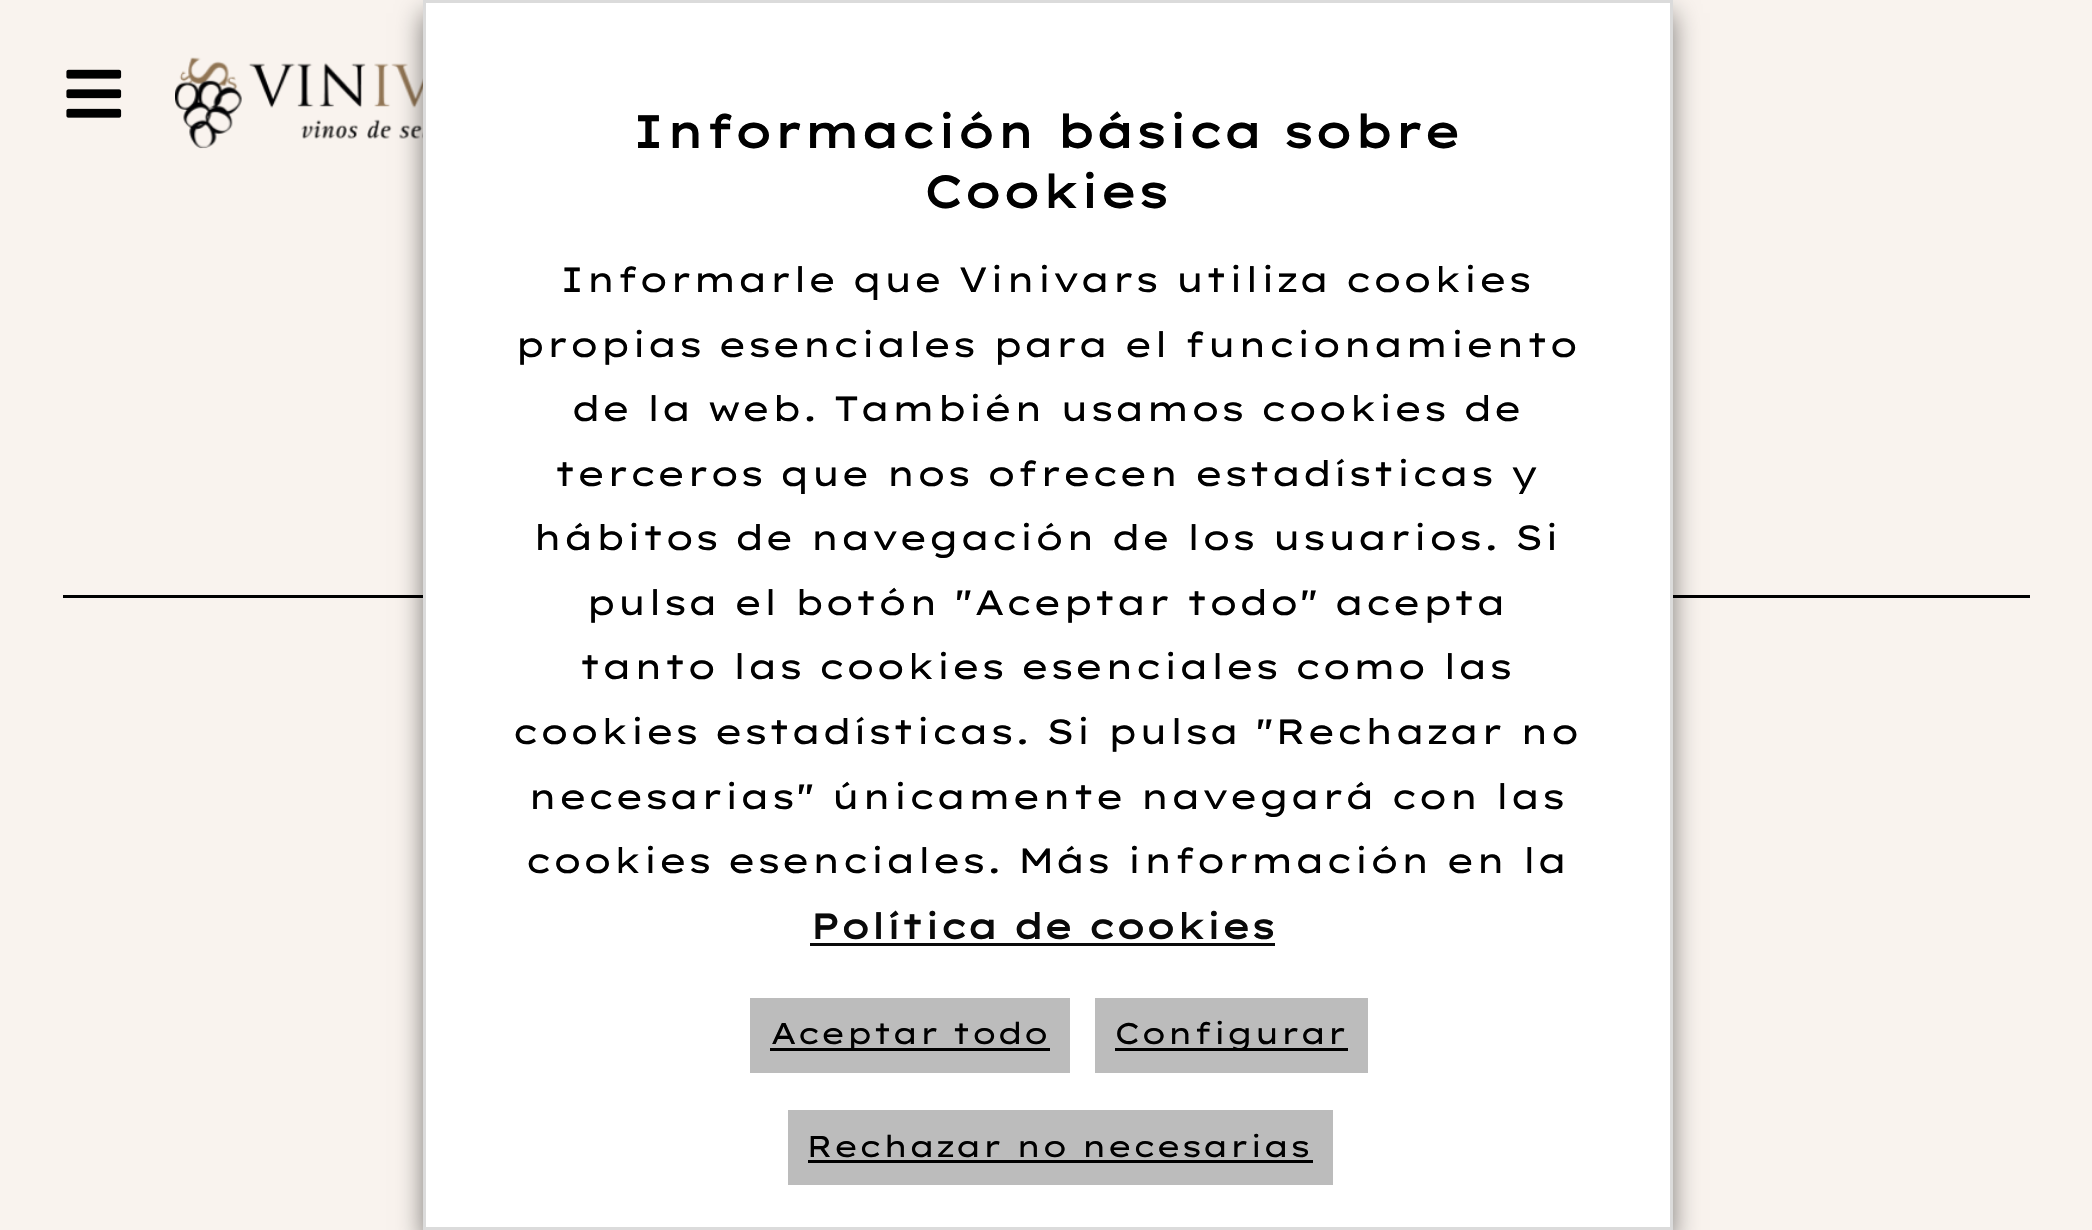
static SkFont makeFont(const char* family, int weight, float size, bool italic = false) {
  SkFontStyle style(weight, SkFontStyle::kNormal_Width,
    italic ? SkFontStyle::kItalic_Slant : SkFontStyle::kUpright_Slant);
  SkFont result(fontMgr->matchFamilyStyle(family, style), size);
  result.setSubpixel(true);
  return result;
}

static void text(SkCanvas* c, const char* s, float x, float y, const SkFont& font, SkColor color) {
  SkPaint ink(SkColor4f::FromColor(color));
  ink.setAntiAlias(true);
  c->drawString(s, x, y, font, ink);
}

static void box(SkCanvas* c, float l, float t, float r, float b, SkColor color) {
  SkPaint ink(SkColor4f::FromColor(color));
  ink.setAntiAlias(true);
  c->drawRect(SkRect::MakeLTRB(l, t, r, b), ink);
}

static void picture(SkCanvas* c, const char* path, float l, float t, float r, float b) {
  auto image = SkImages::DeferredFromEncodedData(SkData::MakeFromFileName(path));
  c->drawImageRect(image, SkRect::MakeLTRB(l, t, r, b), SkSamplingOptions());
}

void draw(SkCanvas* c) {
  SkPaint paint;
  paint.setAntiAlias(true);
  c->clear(0xfff9f3ee);
  picture(c, "img_01.png", 66, 69, 122, 118);
  picture(c, "img_02.png", 175, 57, 423, 149);
  box(c, 63, 595, 2030, 598, 0xff000000);
  paint.setColor(0x80000000);
  paint.setMaskFilter(SkMaskFilter::MakeBlur(kNormal_SkBlurStyle, 12.5f));
  c->drawRect(SkRect::MakeLTRB(423, 13, 1673, 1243), paint);
  paint.setMaskFilter(nullptr);
  paint.setColor(0xffffffff);
  c->drawRect(SkRect::MakeLTRB(424.5f, 1.5f, 1671.5f, 1228.5f), paint);
  paint.setStyle(SkPaint::kStroke_Style);
  paint.setStrokeWidth(3);
  paint.setColor(0xffdbdbdb);
  c->drawRect(SkRect::MakeLTRB(424.5f, 1.5f, 1671.5f, 1228.5f), paint);
  SkFont face1 = makeFont("Lexend Peta", 700, 45);
  text(c, "Información básica sobre", 631, 148, face1, 0xff000000);
  text(c, "Cookies", 923, 208, face1, 0xff000000);
  SkFont face2 = makeFont("Lexend Peta", 400, 35);
  text(c, "Informarle que Vinivars utiliza cookies", 559, 292, face2, 0xff000000);
  text(c, "propias esenciales para el funcionamiento", 514, 357, face2, 0xff000000);
  text(c, "de la web. También usamos cookies de", 571, 421, face2, 0xff000000);
  text(c, "terceros que nos ofrecen estadísticas y", 554, 486, face2, 0xff000000);
  text(c, "hábitos de navegación de los usuarios. Si", 532, 550, face2, 0xff000000);
  text(c, "pulsa el botón \"Aceptar todo\" acepta", 585, 615, face2, 0xff000000);
  text(c, "tanto las cookies esenciales como las", 579, 679, face2, 0xff000000);
  text(c, "cookies estadísticas. Si pulsa \"Rechazar no", 512, 744, face2, 0xff000000);
  text(c, "necesarias\" únicamente navegará con las", 527, 809, face2, 0xff000000);
  text(c, "cookies esenciales. Más información en la", 525, 873, face2, 0xff000000);
  SkFont face3 = makeFont("Lexend Peta", 700, 35);
  text(c, "Política de cookies", 810, 939, face3, 0xff0a0a0a);
  box(c, 810, 943, 1275, 946, 0xff0a0a0a);
  box(c, 750, 998, 1070, 1073, 0xffbcbcbc);
  box(c, 770, 1048, 1050, 1051, 0xff000000);
  SkFont face4 = makeFont("Lexend Peta", 400, 30);
  text(c, "Aceptar todo", 770, 1044, face4, 0xff000000);
  box(c, 1095, 998, 1368, 1073, 0xffbcbcbc);
  box(c, 1115, 1048, 1348, 1051, 0xff000000);
  text(c, "Configurar", 1114, 1044, face4, 0xff000000);
  box(c, 788, 1110, 1333, 1185, 0xffbcbcbc);
  text(c, "Rechazar no necesarias", 806, 1157, face4, 0xff000000);
  box(c, 808, 1160, 1313, 1163, 0xff000000);
}
